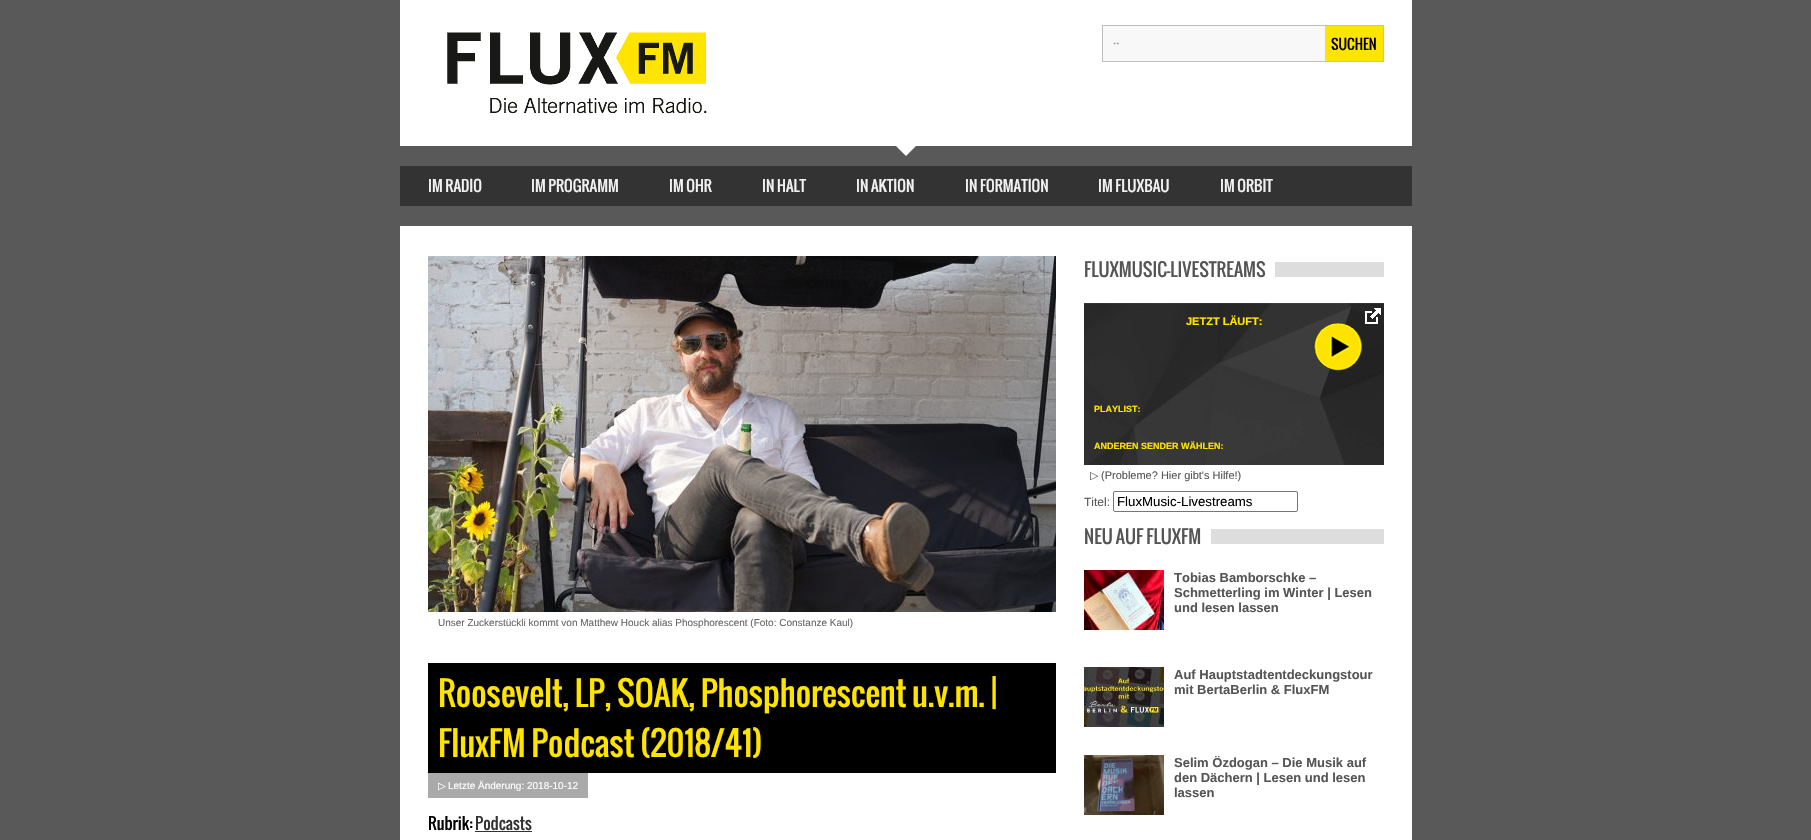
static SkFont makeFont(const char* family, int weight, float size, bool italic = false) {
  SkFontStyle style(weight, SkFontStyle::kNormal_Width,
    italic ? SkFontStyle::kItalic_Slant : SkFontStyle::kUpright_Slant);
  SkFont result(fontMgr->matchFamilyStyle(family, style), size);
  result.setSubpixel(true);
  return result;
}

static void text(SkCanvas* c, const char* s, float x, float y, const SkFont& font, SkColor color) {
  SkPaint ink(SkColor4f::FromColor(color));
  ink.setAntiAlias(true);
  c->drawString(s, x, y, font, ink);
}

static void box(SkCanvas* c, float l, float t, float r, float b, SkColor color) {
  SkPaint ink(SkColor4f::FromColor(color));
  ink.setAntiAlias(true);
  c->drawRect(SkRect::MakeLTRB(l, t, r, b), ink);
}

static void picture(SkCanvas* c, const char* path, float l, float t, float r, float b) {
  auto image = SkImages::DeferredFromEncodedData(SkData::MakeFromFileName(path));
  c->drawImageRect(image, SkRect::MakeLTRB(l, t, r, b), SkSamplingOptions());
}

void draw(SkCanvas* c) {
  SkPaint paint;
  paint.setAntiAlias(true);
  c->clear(0xff595959);
  box(c, 400, 0, 1412, 146, 0xffffffff);
  picture(c, "img_01.png", 447, 32, 707, 114);
  box(c, 1103, 26, 1325, 61, 0xfff8f8f8);
  paint.setStyle(SkPaint::kStroke_Style);
  paint.setStrokeWidth(1);
  paint.setColor(0xffc0c0c0);
  c->drawRect(SkRect::MakeLTRB(1102.5f, 25.5f, 1383.5f, 61.5f), paint);
  SkFont face1 = makeFont("Liberation Serif", 400, 13);
  text(c, "..", 1113, 44, face1, 0xff888888);
  box(c, 1325, 26, 1383, 61, 0xffffe400);
  SkFont face2 = makeFont("Oswald", 400, 14);
  text(c, "SUCHEN", 1331, 50, face2, 0xff000000);
  paint.setStyle(SkPaint::kFill_Style);
  paint.setColor(0xffffffff);
  c->drawPath(SkPathBuilder().moveTo(896, 146).lineTo(916, 146).lineTo(906, 156).close().detach(), paint);
  box(c, 400, 166, 1412, 206, 0xff333333);
  SkFont face3 = makeFont("Oswald", 400, 15);
  text(c, "IM RADIO", 428, 192, face3, 0xfff1f1f1);
  text(c, "IM PROGRAMM", 531, 192, face3, 0xfff1f1f1);
  text(c, "IM OHR", 669, 192, face3, 0xfff1f1f1);
  text(c, "IN HALT", 762, 192, face3, 0xfff1f1f1);
  text(c, "IN AKTION", 856, 192, face3, 0xfff1f1f1);
  text(c, "IN FORMATION", 965, 192, face3, 0xfff1f1f1);
  text(c, "IM FLUXBAU", 1098, 192, face3, 0xfff1f1f1);
  text(c, "IM ORBIT", 1220, 192, face3, 0xfff1f1f1);
  box(c, 400, 226, 1412, 840, 0xffffffff);
  picture(c, "img_02.png", 428, 256, 1056, 612);
  SkFont face4 = makeFont("Liberation Sans", 400, 10);
  text(c, "Unser Zuckerstückli kommt von Matthew Houck alias Phosphorescent (Foto: Constanze Kaul)", 438, 626, face4, 0xff666666);
  box(c, 428, 663, 1056, 773, 0xff000000);
  SkFont face5 = makeFont("Oswald", 400, 33);
  text(c, "Roosevelt, LP, SOAK, Phosphorescent u.v.m. |", 438, 707, face5, 0xffffe400);
  text(c, "FluxFM Podcast (2018/41)", 438, 757, face5, 0xffffe400);
  box(c, 428, 773, 588, 798, 0xffaaaaaa);
  SkFont face6 = makeFont("DejaVu Sans", 400, 10);
  text(c, "▷", 438, 789, face6, 0xffffffff);
  text(c, "Letzte Änderung: 2018-10-12", 448, 789, face4, 0xffffffff);
  SkFont face7 = makeFont("Oswald", 400, 16);
  text(c, "Rubrik:", 428, 830, face7, 0xff000000);
  text(c, "Podcasts", 475, 830, face7, 0xff333333);
  box(c, 475, 831, 532, 832, 0xff333333);
  box(c, 1275, 262, 1384, 277, 0xffdddddd);
  SkFont face8 = makeFont("Oswald", 400, 18);
  text(c, "FLUXMUSIC-LIVESTREAMS", 1084, 277, face8, 0xff555555);
  picture(c, "img_03.png", 1084, 303, 1384, 465);
  SkFont face9 = makeFont("Liberation Sans", 700, 11);
  text(c, "JETZT LÄUFT:", 1186, 325, face9, 0xffffe400);
  picture(c, "img_04.png", 1365, 308, 1381, 324);
  picture(c, "img_05.png", 1313, 323, 1362, 371);
  SkFont face10 = makeFont("Liberation Sans", 700, 9);
  text(c, "PLAYLIST:", 1094, 412, face10, 0xffffe400);
  text(c, "ANDEREN SENDER WÄHLEN:", 1094, 449, face10, 0xffffe400);
  SkFont face11 = makeFont("DejaVu Sans", 400, 11);
  text(c, "▷", 1090, 479, face11, 0xff555555);
  SkFont face12 = makeFont("Liberation Sans", 400, 11);
  text(c, "(Probleme? Hier gibt's Hilfe!)", 1101, 479, face12, 0xff555555);
  SkFont face13 = makeFont("Liberation Sans", 400, 12);
  text(c, "Titel:", 1084, 506, face13, 0xff555555);
  paint.setStyle(SkPaint::kStroke_Style);
  paint.setColor(0xff767676);
  c->drawRoundRect(SkRect::MakeLTRB(1113.5f, 491.5f, 1297.5f, 511.5f), 1.5f, 1.5f, paint);
  SkFont face14 = makeFont("Liberation Sans", 400, 13.25f);
  text(c, "FluxMusic-Livestreams", 1117, 506, face14, 0xff000000);
  box(c, 1211, 529, 1384, 544, 0xffdddddd);
  text(c, "NEU AUF FLUXFM", 1084, 544, face8, 0xff555555);
  picture(c, "img_06.png", 1084, 570, 1164, 630);
  SkFont face15 = makeFont("Liberation Sans", 700, 13);
  text(c, "Tobias Bamborschke –", 1174, 582, face15, 0xff555555);
  text(c, "Schmetterling im Winter | Lesen", 1174, 597, face15, 0xff555555);
  text(c, "und lesen lassen", 1174, 612, face15, 0xff555555);
  picture(c, "img_07.png", 1084, 667, 1164, 727);
  text(c, "Auf Hauptstadtentdeckungstour", 1174, 679, face15, 0xff555555);
  text(c, "mit BertaBerlin & FluxFM", 1174, 694, face15, 0xff555555);
  picture(c, "img_08.png", 1084, 755, 1164, 815);
  text(c, "Selim Özdogan – Die Musik auf", 1174, 767, face15, 0xff555555);
  text(c, "den Dächern | Lesen und lesen", 1174, 782, face15, 0xff555555);
  text(c, "lassen", 1174, 797, face15, 0xff555555);
}
